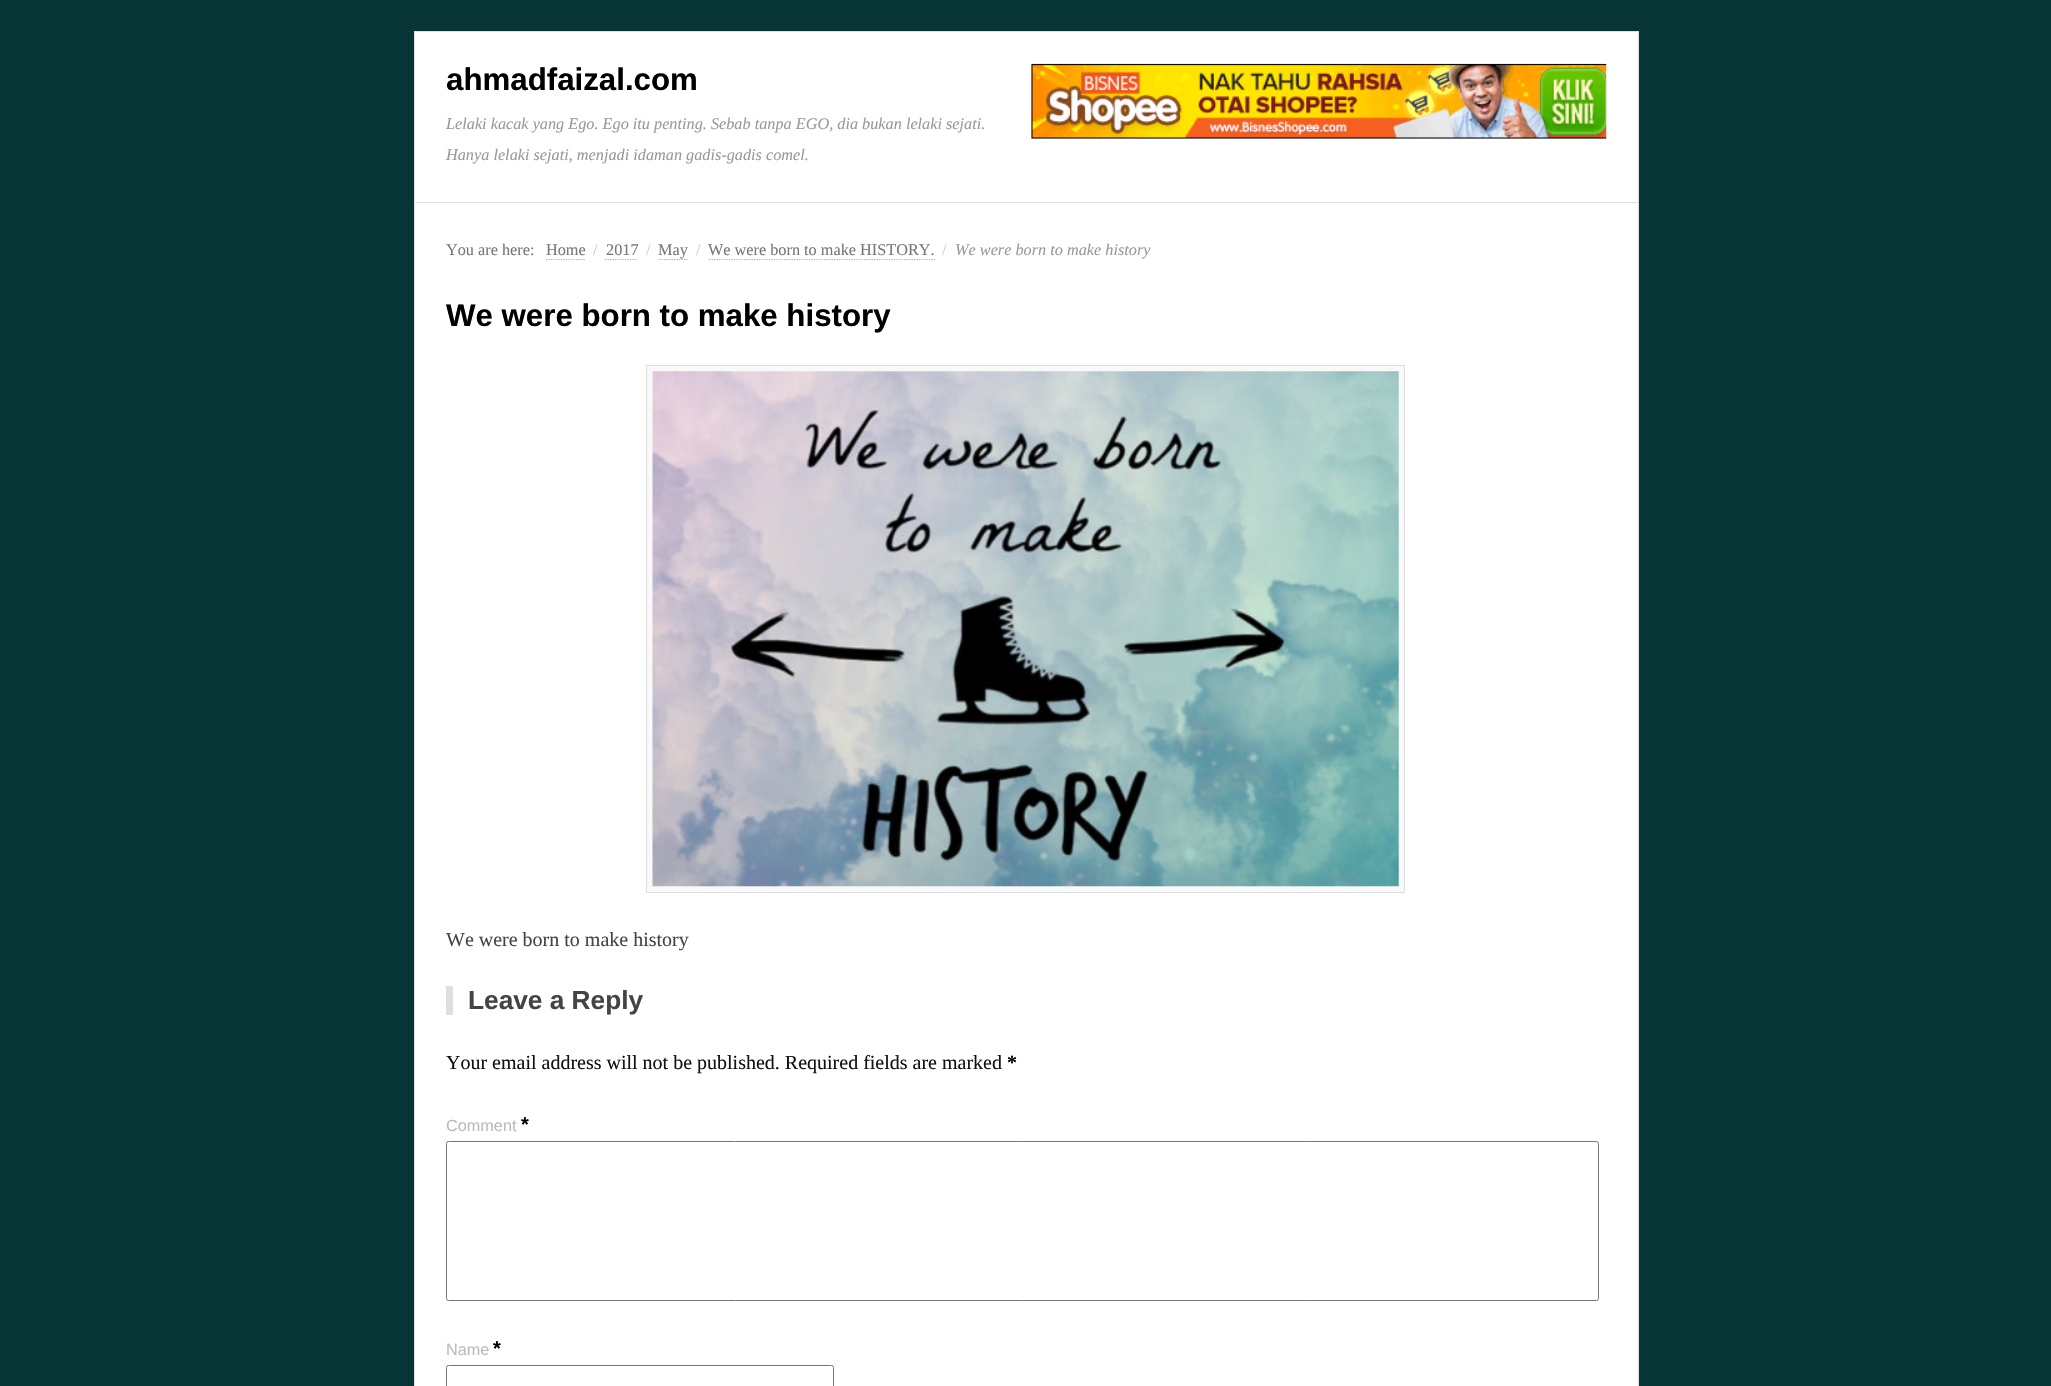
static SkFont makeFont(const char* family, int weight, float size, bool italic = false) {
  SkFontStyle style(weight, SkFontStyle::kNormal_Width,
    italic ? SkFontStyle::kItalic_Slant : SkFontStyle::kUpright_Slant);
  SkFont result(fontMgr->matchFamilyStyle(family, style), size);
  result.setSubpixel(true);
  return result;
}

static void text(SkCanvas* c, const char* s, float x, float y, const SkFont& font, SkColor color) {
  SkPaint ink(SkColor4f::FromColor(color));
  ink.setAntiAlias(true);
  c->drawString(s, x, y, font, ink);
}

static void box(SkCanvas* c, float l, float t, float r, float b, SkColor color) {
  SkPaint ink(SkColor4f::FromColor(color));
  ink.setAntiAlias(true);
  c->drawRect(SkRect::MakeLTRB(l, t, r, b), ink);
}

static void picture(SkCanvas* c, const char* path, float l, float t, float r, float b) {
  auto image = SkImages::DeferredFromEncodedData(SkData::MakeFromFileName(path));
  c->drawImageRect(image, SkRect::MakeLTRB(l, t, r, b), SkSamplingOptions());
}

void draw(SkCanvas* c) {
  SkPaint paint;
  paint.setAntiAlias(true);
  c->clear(0xff073535);
  paint.setColor(0xffffffff);
  c->drawRect(SkRect::MakeLTRB(414.5f, 31.5f, 1638.5f, 202.5f), paint);
  paint.setStyle(SkPaint::kStroke_Style);
  paint.setStrokeWidth(1);
  paint.setColor(0xffdfdfdf);
  c->drawRect(SkRect::MakeLTRB(414.5f, 31.5f, 1638.5f, 202.5f), paint);
  SkFont face1 = makeFont("Liberation Sans", 700, 31.25f);
  text(c, "ahmadfaizal.com", 446, 90, face1, 0xff000000);
  SkFont face2 = makeFont("Liberation Serif", 400, 16.25f, true);
  text(c, "Lelaki kacak yang Ego. Ego itu penting. Sebab tanpa EGO, dia bukan lelaki sejati.", 446, 129, face2, 0xff999999);
  text(c, "Hanya lelaki sejati, menjadi idaman gadis-gadis comel.", 446, 160, face2, 0xff999999);
  picture(c, "img_01.png", 1031, 63, 1607, 139);
  box(c, 415, 203, 1638, 1386, 0xffffffff);
  box(c, 1638, 203, 1639, 1386, 0xffdfdfdf);
  box(c, 414, 203, 415, 1386, 0xffdfdfdf);
  SkFont face3 = makeFont("Liberation Serif", 400, 16.25f);
  text(c, "You are here:", 446, 255, face3, 0xff777777);
  text(c, "Home", 546, 255, face3, 0xff777777);
  paint.setStrokeWidth(1.2f);
  paint.setColor(0xffaaaaaa);
  paint.setPathEffect(SkDashPathEffect::Make({{1.25f, 1.25f}}, 0));
  c->drawPath(SkPathBuilder().moveTo(546, 259.5f).lineTo(585, 259.5f).detach(), paint);
  paint.setPathEffect(nullptr);
  text(c, "/", 593, 255, face3, 0xffcccccc);
  text(c, "2017", 606, 255, face3, 0xff777777);
  paint.setPathEffect(SkDashPathEffect::Make({{1.25f, 1.25f}}, 0));
  c->drawPath(SkPathBuilder().moveTo(605, 259.5f).lineTo(637.5f, 259.5f).detach(), paint);
  paint.setPathEffect(nullptr);
  text(c, "/", 646, 255, face3, 0xffcccccc);
  paint.setPathEffect(SkDashPathEffect::Make({{1.25f, 1.25f}}, 0));
  c->drawPath(SkPathBuilder().moveTo(659, 259.5f).lineTo(687.5f, 259.5f).detach(), paint);
  paint.setPathEffect(nullptr);
  text(c, "May", 658, 255, face3, 0xff777777);
  text(c, "/", 696, 255, face3, 0xffcccccc);
  text(c, "We were born to make HISTORY.", 708, 255, face3, 0xff777777);
  paint.setPathEffect(SkDashPathEffect::Make({{1.25f, 1.25f}}, 0));
  c->drawPath(SkPathBuilder().moveTo(709, 259.5f).lineTo(935, 259.5f).detach(), paint);
  paint.setPathEffect(nullptr);
  text(c, "/", 942, 255, face3, 0xffcccccc);
  text(c, "We were born to make history", 955, 255, face2, 0xff999999);
  text(c, "We were born to make history", 446, 326, face1, 0xff000000);
  paint.setStyle(SkPaint::kFill_Style);
  paint.setColor(0xfff9f9f9);
  c->drawRect(SkRect::MakeLTRB(646.5f, 365.5f, 1404.5f, 892.5f), paint);
  paint.setStyle(SkPaint::kStroke_Style);
  paint.setStrokeWidth(1);
  paint.setColor(0xffdddddd);
  c->drawRect(SkRect::MakeLTRB(646.5f, 365.5f, 1404.5f, 892.5f), paint);
  picture(c, "img_02.png", 652, 371, 1399, 887);
  SkFont face4 = makeFont("Liberation Serif", 400, 20);
  text(c, "We were born to make history", 446, 946, face4, 0xff444444);
  box(c, 446, 986, 453, 1015, 0xffdfdfdf);
  SkFont face5 = makeFont("Liberation Sans", 700, 26.25f);
  text(c, "Leave a Reply", 468, 1009, face5, 0xff444444);
  text(c, "Your email address will not be published. Required fields are marked", 446, 1069, face4, 0xff111111);
  SkFont face6 = makeFont("Liberation Serif", 700, 20);
  text(c, "*", 1007, 1069, face6, 0xff000000);
  SkFont face7 = makeFont("Liberation Sans", 400, 16.25f);
  text(c, "Comment", 446, 1131, face7, 0xffbbbbbb);
  SkFont face8 = makeFont("Liberation Sans", 700, 20);
  text(c, "*", 521, 1131, face8, 0xff000000);
  paint.setColor(0xff767676);
  c->drawRoundRect(SkRect::MakeLTRB(446.5f, 1141.5f, 1598.5f, 1300.5f), 2, 2, paint);
  text(c, "Name", 446, 1355, face7, 0xffbbbbbb);
  text(c, "*", 493, 1355, face8, 0xff000000);
  c->drawRoundRect(SkRect::MakeLTRB(446.5f, 1365.5f, 833.5f, 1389.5f), 2, 2, paint);
}
